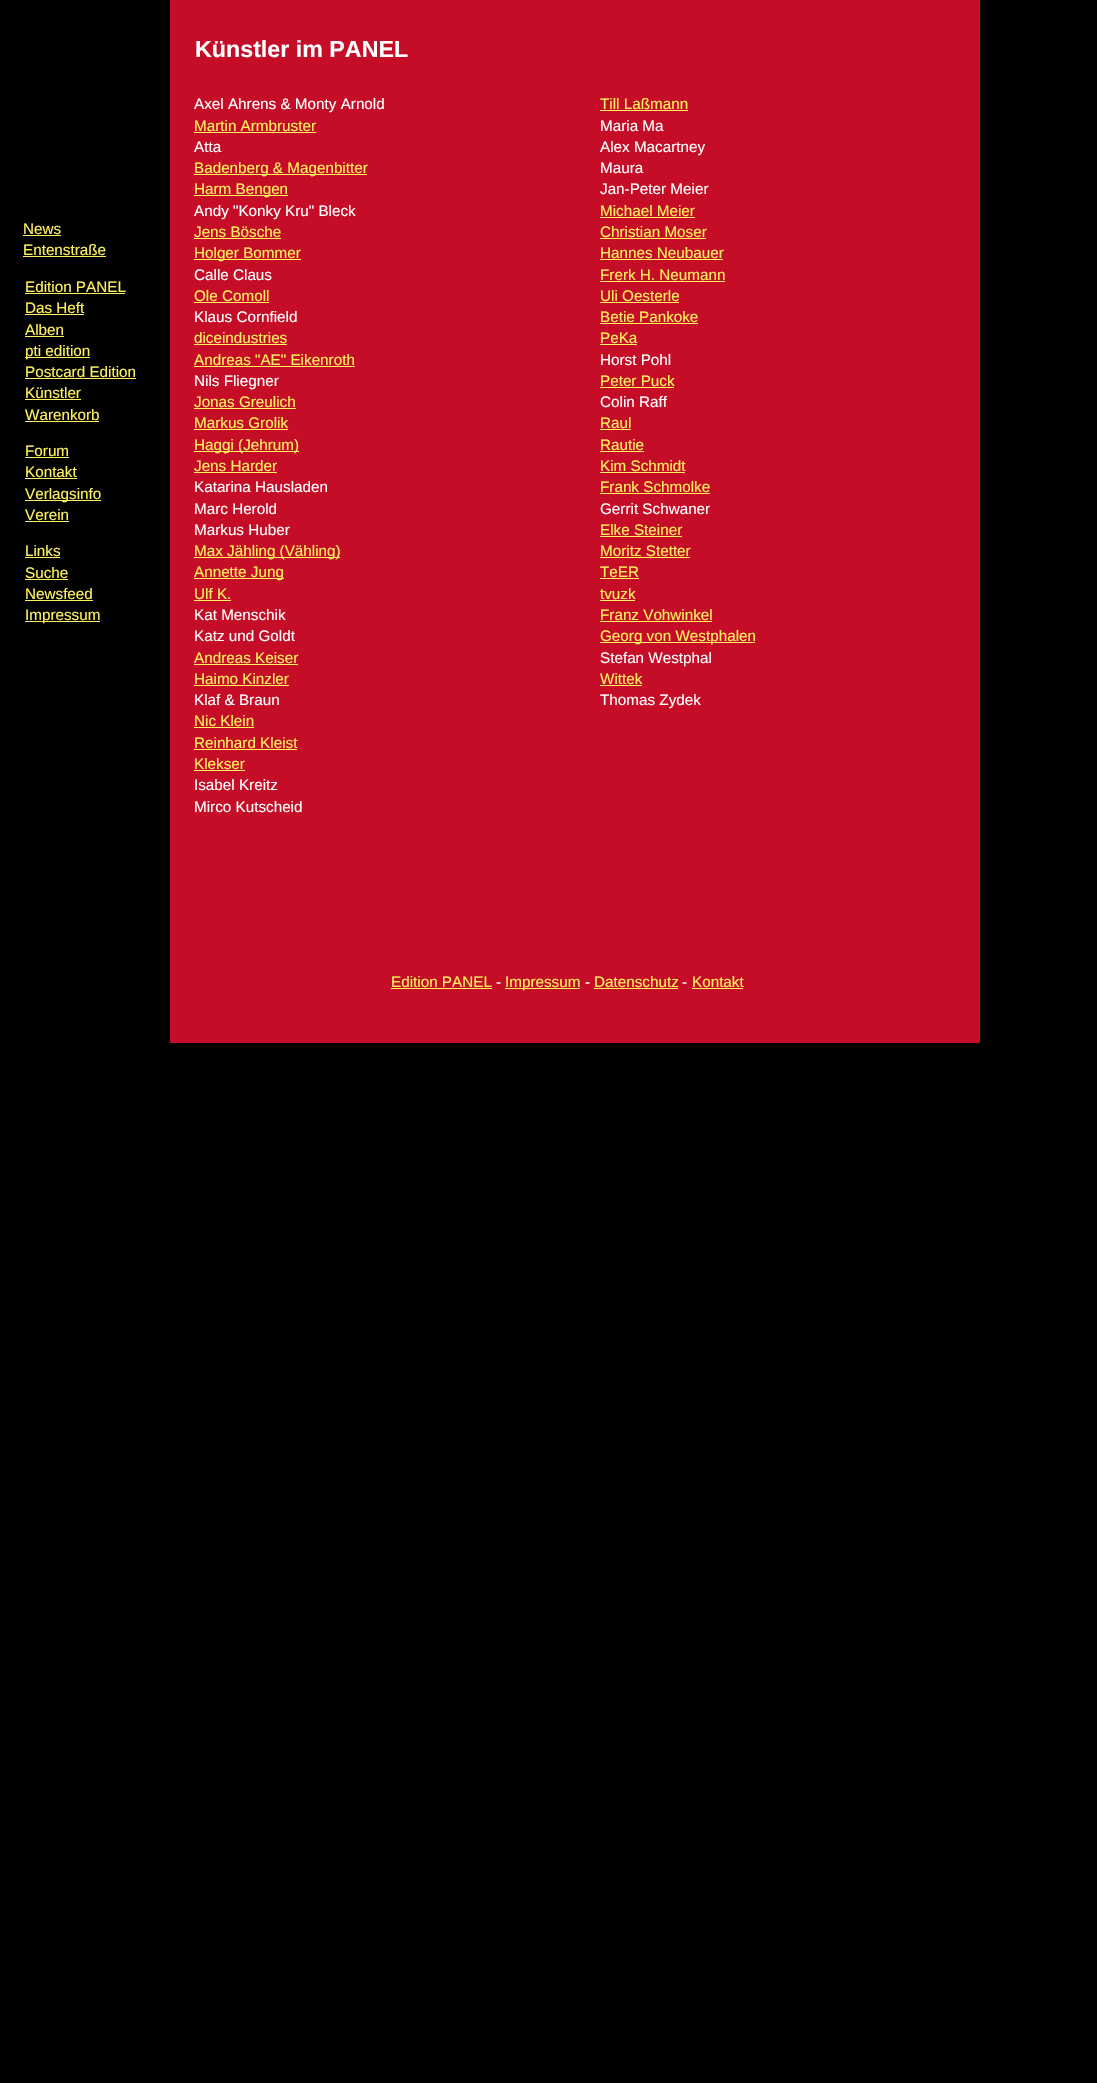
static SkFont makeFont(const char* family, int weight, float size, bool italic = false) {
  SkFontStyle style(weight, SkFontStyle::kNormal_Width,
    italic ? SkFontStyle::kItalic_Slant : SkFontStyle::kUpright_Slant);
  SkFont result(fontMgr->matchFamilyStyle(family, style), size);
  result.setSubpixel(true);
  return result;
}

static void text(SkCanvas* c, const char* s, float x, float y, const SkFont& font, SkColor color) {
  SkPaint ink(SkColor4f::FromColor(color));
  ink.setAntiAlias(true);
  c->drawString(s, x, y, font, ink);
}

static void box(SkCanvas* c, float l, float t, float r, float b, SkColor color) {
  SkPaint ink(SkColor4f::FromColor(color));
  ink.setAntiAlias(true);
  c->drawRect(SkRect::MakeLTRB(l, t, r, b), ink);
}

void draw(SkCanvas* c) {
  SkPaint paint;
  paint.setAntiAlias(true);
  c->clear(0xff000000);
  SkFont face1 = makeFont("Liberation Sans", 400, 15.25f);
  text(c, "News", 23, 234, face1, 0xfffff15e);
  box(c, 23, 235, 61, 236, 0xfffff15e);
  text(c, "Entenstraße", 23, 255, face1, 0xfffff15e);
  box(c, 23, 256, 106, 257, 0xfffff15e);
  text(c, "Edition PANEL", 25, 292, face1, 0xfffff15e);
  box(c, 25, 293, 125, 294, 0xfffff15e);
  text(c, "Das Heft", 25, 313, face1, 0xfffff15e);
  box(c, 25, 314, 84, 315, 0xfffff15e);
  text(c, "Alben", 25, 335, face1, 0xfffff15e);
  box(c, 25, 336, 64, 337, 0xfffff15e);
  box(c, 25, 357, 90, 358, 0xfffff15e);
  text(c, "pti edition", 25, 356, face1, 0xfffff15e);
  text(c, "Postcard Edition", 25, 377, face1, 0xfffff15e);
  box(c, 25, 378, 136, 379, 0xfffff15e);
  text(c, "Künstler", 25, 398, face1, 0xfffff15e);
  box(c, 25, 399, 81, 400, 0xfffff15e);
  text(c, "Warenkorb", 25, 420, face1, 0xfffff15e);
  box(c, 25, 421, 99, 422, 0xfffff15e);
  text(c, "Forum", 25, 456, face1, 0xfffff15e);
  box(c, 25, 457, 69, 458, 0xfffff15e);
  text(c, "Kontakt", 25, 477, face1, 0xfffff15e);
  box(c, 25, 478, 77, 479, 0xfffff15e);
  box(c, 25, 500, 101, 501, 0xfffff15e);
  text(c, "Verlagsinfo", 25, 499, face1, 0xfffff15e);
  text(c, "Verein", 25, 520, face1, 0xfffff15e);
  box(c, 25, 521, 69, 522, 0xfffff15e);
  text(c, "Links", 25, 556, face1, 0xfffff15e);
  box(c, 25, 557, 60, 558, 0xfffff15e);
  text(c, "Suche", 25, 578, face1, 0xfffff15e);
  box(c, 25, 579, 68, 580, 0xfffff15e);
  text(c, "Newsfeed", 25, 599, face1, 0xfffff15e);
  box(c, 25, 600, 93, 601, 0xfffff15e);
  box(c, 25, 621, 100, 622, 0xfffff15e);
  text(c, "Impressum", 25, 620, face1, 0xfffff15e);
  box(c, 170, 0, 980, 1043, 0xffc50d27);
  SkFont face2 = makeFont("Liberation Sans", 700, 23.25f);
  text(c, "Künstler im PANEL", 195, 57, face2, 0xffffffff);
  text(c, "Axel Ahrens & Monty Arnold", 194, 109, face1, 0xffffffff);
  text(c, "Martin Armbruster", 194, 131, face1, 0xfffff15e);
  box(c, 194, 132, 316, 133, 0xfffff15e);
  text(c, "Atta", 194, 152, face1, 0xffffffff);
  box(c, 194, 174, 367, 175, 0xfffff15e);
  text(c, "Badenberg & Magenbitter", 194, 173, face1, 0xfffff15e);
  box(c, 194, 195, 288, 196, 0xfffff15e);
  text(c, "Harm Bengen", 194, 194, face1, 0xfffff15e);
  text(c, "Andy \"Konky Kru\" Bleck", 194, 216, face1, 0xffffffff);
  text(c, "Jens Bösche", 194, 237, face1, 0xfffff15e);
  box(c, 194, 238, 281, 239, 0xfffff15e);
  box(c, 194, 259, 301, 260, 0xfffff15e);
  text(c, "Holger Bommer", 194, 258, face1, 0xfffff15e);
  text(c, "Calle Claus", 194, 280, face1, 0xffffffff);
  text(c, "Ole Comoll", 194, 301, face1, 0xfffff15e);
  box(c, 194, 302, 269, 303, 0xfffff15e);
  text(c, "Klaus Cornfield", 194, 322, face1, 0xffffffff);
  text(c, "diceindustries", 194, 343, face1, 0xfffff15e);
  box(c, 194, 344, 287, 345, 0xfffff15e);
  text(c, "Andreas \"AE\" Eikenroth", 194, 365, face1, 0xfffff15e);
  box(c, 194, 366, 355, 367, 0xfffff15e);
  text(c, "Nils Fliegner", 194, 386, face1, 0xffffffff);
  text(c, "Jonas Greulich", 194, 407, face1, 0xfffff15e);
  box(c, 194, 408, 296, 409, 0xfffff15e);
  text(c, "Markus Grolik", 194, 428, face1, 0xfffff15e);
  box(c, 194, 429, 288, 430, 0xfffff15e);
  box(c, 194, 451, 299, 452, 0xfffff15e);
  text(c, "Haggi (Jehrum)", 194, 450, face1, 0xfffff15e);
  text(c, "Jens Harder", 194, 471, face1, 0xfffff15e);
  box(c, 194, 472, 277, 473, 0xfffff15e);
  text(c, "Katarina Hausladen", 194, 492, face1, 0xffffffff);
  text(c, "Marc Herold", 194, 514, face1, 0xffffffff);
  text(c, "Markus Huber", 194, 535, face1, 0xffffffff);
  box(c, 194, 557, 340, 558, 0xfffff15e);
  text(c, "Max Jähling (Vähling)", 194, 556, face1, 0xfffff15e);
  box(c, 194, 578, 284, 579, 0xfffff15e);
  text(c, "Annette Jung", 194, 577, face1, 0xfffff15e);
  text(c, "Ulf K.", 194, 599, face1, 0xfffff15e);
  box(c, 194, 600, 231, 601, 0xfffff15e);
  text(c, "Kat Menschik", 194, 620, face1, 0xffffffff);
  text(c, "Katz und Goldt", 194, 641, face1, 0xffffffff);
  text(c, "Andreas Keiser", 194, 663, face1, 0xfffff15e);
  box(c, 194, 664, 298, 665, 0xfffff15e);
  text(c, "Haimo Kinzler", 194, 684, face1, 0xfffff15e);
  box(c, 194, 685, 289, 686, 0xfffff15e);
  text(c, "Klaf & Braun", 194, 705, face1, 0xffffffff);
  text(c, "Nic Klein", 194, 726, face1, 0xfffff15e);
  box(c, 194, 727, 254, 728, 0xfffff15e);
  text(c, "Reinhard Kleist", 194, 748, face1, 0xfffff15e);
  box(c, 194, 749, 297, 750, 0xfffff15e);
  text(c, "Klekser", 194, 769, face1, 0xfffff15e);
  box(c, 194, 770, 245, 771, 0xfffff15e);
  text(c, "Isabel Kreitz", 194, 790, face1, 0xffffffff);
  text(c, "Mirco Kutscheid", 194, 812, face1, 0xffffffff);
  text(c, "Till Laßmann", 600, 109, face1, 0xfffff15e);
  box(c, 600, 110, 688, 111, 0xfffff15e);
  text(c, "Maria Ma", 600, 131, face1, 0xffffffff);
  text(c, "Alex Macartney", 600, 152, face1, 0xffffffff);
  text(c, "Maura", 600, 173, face1, 0xffffffff);
  text(c, "Jan-Peter Meier", 600, 194, face1, 0xffffffff);
  text(c, "Michael Meier", 600, 216, face1, 0xfffff15e);
  box(c, 600, 217, 695, 218, 0xfffff15e);
  text(c, "Christian Moser", 600, 237, face1, 0xfffff15e);
  box(c, 600, 238, 706, 239, 0xfffff15e);
  text(c, "Hannes Neubauer", 600, 258, face1, 0xfffff15e);
  box(c, 600, 259, 723, 260, 0xfffff15e);
  text(c, "Frerk H. Neumann", 600, 280, face1, 0xfffff15e);
  box(c, 600, 281, 725, 282, 0xfffff15e);
  text(c, "Uli Oesterle", 600, 301, face1, 0xfffff15e);
  box(c, 600, 302, 679, 303, 0xfffff15e);
  text(c, "Betie Pankoke", 600, 322, face1, 0xfffff15e);
  box(c, 600, 323, 698, 324, 0xfffff15e);
  text(c, "PeKa", 600, 343, face1, 0xfffff15e);
  box(c, 600, 344, 637, 345, 0xfffff15e);
  text(c, "Horst Pohl", 600, 365, face1, 0xffffffff);
  text(c, "Peter Puck", 600, 386, face1, 0xfffff15e);
  box(c, 600, 387, 674, 388, 0xfffff15e);
  text(c, "Colin Raff", 600, 407, face1, 0xffffffff);
  text(c, "Raul", 600, 428, face1, 0xfffff15e);
  box(c, 600, 429, 631, 430, 0xfffff15e);
  text(c, "Rautie", 600, 450, face1, 0xfffff15e);
  box(c, 600, 451, 644, 452, 0xfffff15e);
  text(c, "Kim Schmidt", 600, 471, face1, 0xfffff15e);
  box(c, 600, 472, 685, 473, 0xfffff15e);
  text(c, "Frank Schmolke", 600, 492, face1, 0xfffff15e);
  box(c, 600, 493, 710, 494, 0xfffff15e);
  text(c, "Gerrit Schwaner", 600, 514, face1, 0xffffffff);
  text(c, "Elke Steiner", 600, 535, face1, 0xfffff15e);
  box(c, 600, 536, 682, 537, 0xfffff15e);
  text(c, "Moritz Stetter", 600, 556, face1, 0xfffff15e);
  box(c, 600, 557, 690, 558, 0xfffff15e);
  text(c, "TeER", 600, 577, face1, 0xfffff15e);
  box(c, 600, 578, 639, 579, 0xfffff15e);
  text(c, "tvuzk", 600, 599, face1, 0xfffff15e);
  box(c, 600, 600, 635, 601, 0xfffff15e);
  text(c, "Franz Vohwinkel", 600, 620, face1, 0xfffff15e);
  box(c, 600, 621, 712, 622, 0xfffff15e);
  box(c, 600, 642, 755, 643, 0xfffff15e);
  text(c, "Georg von Westphalen", 600, 641, face1, 0xfffff15e);
  text(c, "Stefan Westphal", 600, 663, face1, 0xffffffff);
  text(c, "Wittek", 600, 684, face1, 0xfffff15e);
  box(c, 600, 685, 642, 686, 0xfffff15e);
  text(c, "Thomas Zydek", 600, 705, face1, 0xffffffff);
  text(c, "Edition PANEL", 391, 987, face1, 0xfffff15e);
  box(c, 391, 988, 492, 989, 0xfffff15e);
  text(c, "-", 496, 987, face1, 0xffffffff);
  box(c, 505, 988, 580, 989, 0xfffff15e);
  text(c, "Impressum", 505, 987, face1, 0xfffff15e);
  text(c, "-", 585, 987, face1, 0xffffffff);
  text(c, "Datenschutz", 594, 987, face1, 0xfffff15e);
  box(c, 594, 988, 678, 989, 0xfffff15e);
  text(c, "-", 682, 987, face1, 0xffffffff);
  text(c, "Kontakt", 692, 987, face1, 0xfffff15e);
  box(c, 692, 988, 743, 989, 0xfffff15e);
}
